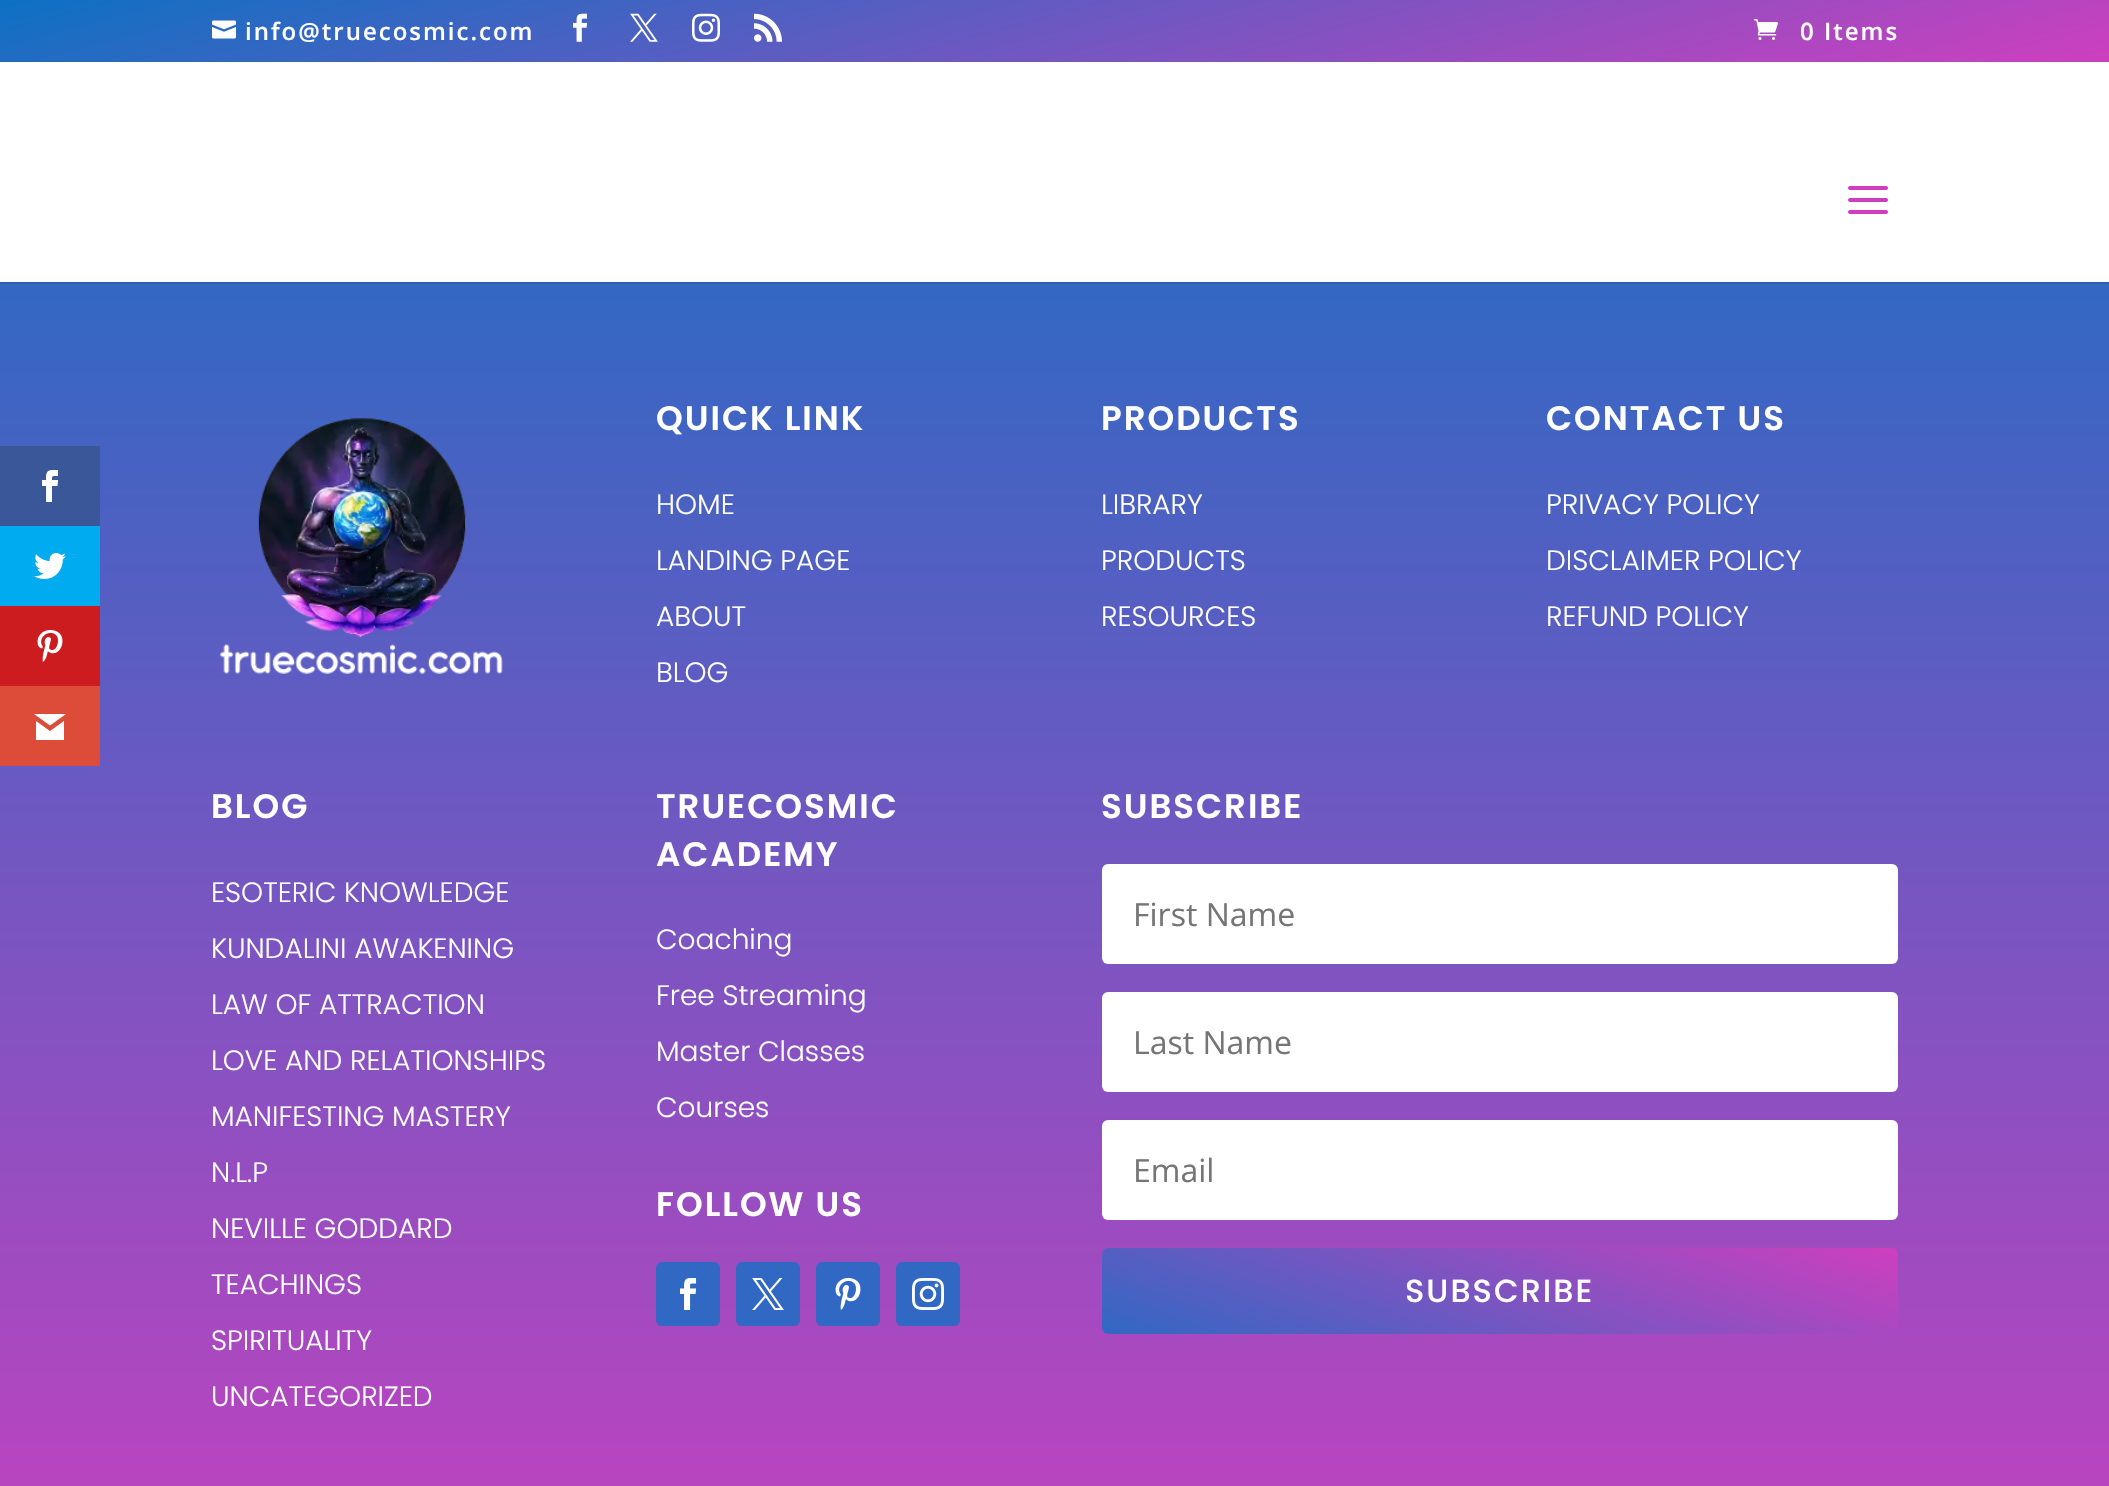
static SkFont makeFont(const char* family, int weight, float size, bool italic = false) {
  SkFontStyle style(weight, SkFontStyle::kNormal_Width,
    italic ? SkFontStyle::kItalic_Slant : SkFontStyle::kUpright_Slant);
  SkFont result(fontMgr->matchFamilyStyle(family, style), size);
  result.setSubpixel(true);
  return result;
}

static void text(SkCanvas* c, const char* s, float x, float y, const SkFont& font, SkColor color) {
  SkPaint ink(SkColor4f::FromColor(color));
  ink.setAntiAlias(true);
  c->drawString(s, x, y, font, ink);
}

static void spacedText(SkCanvas* c, const char* s, float x, float y, const SkFont& font, const SkPaint& ink, float letter, float word) {
  std::vector<SkGlyphID> glyphs(font.countText(s, strlen(s), SkTextEncoding::kUTF8));
  std::vector<float> xs(glyphs.size());
  font.textToGlyphs(s, strlen(s), SkTextEncoding::kUTF8, glyphs);
  font.getXPos(glyphs, xs, x);
  float extra = 0;
  for (size_t i = 0; i < glyphs.size(); i++) {
    xs[i] += extra;
    extra += letter + word * (glyphs[i] == font.unicharToGlyph(' '));
  }
  c->drawTextBlob(SkTextBlob::MakeFromPosHGlyphs(glyphs, xs, y, font), 0, 0, ink);
}

static void box(SkCanvas* c, float l, float t, float r, float b, SkColor color) {
  SkPaint ink(SkColor4f::FromColor(color));
  ink.setAntiAlias(true);
  c->drawRect(SkRect::MakeLTRB(l, t, r, b), ink);
}

static void roundBox(SkCanvas* c, float l, float t, float r, float b, float radius, SkColor color) {
  SkPaint ink(SkColor4f::FromColor(color));
  ink.setAntiAlias(true);
  c->drawRoundRect(SkRect::MakeLTRB(l, t, r, b), radius, radius, ink);
}

static void picture(SkCanvas* c, const char* path, float l, float t, float r, float b) {
  auto image = SkImages::DeferredFromEncodedData(SkData::MakeFromFileName(path));
  c->drawImageRect(image, SkRect::MakeLTRB(l, t, r, b), SkSamplingOptions());
}

void draw(SkCanvas* c) {
  SkPaint paint;
  paint.setAntiAlias(true);
  c->clear(0xffffffff);
  {
    const SkColor colors[] = {0xff3168c3, 0xffce3fbf};
    const float stops[] = {0, 1};
    const SkPoint ends[] = {{1055, 270}, {1055, 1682}};
    paint.setShader(SkGradientShader::MakeLinear(ends, colors, stops, 2, SkTileMode::kClamp));
    paint.setAlpha(255);
  }
  c->drawRect(SkRect::MakeLTRB(0, 284, 2109, 1486), paint);
  box(c, 0, 446, 100, 526, 0xff3a579a);
  picture(c, "img_01.png", 42, 470, 59, 502);
  box(c, 0, 526, 100, 606, 0xff00abf0);
  picture(c, "img_02.png", 34, 553, 66, 579);
  box(c, 0, 606, 100, 686, 0xffcd1c1f);
  picture(c, "img_03.png", 37, 630, 63, 662);
  box(c, 0, 686, 100, 766, 0xffdd4b39);
  paint.setShader(nullptr);
  paint.setColor(0xffffffff);
  c->drawPath(SkPathBuilder().moveTo(66, 714).lineTo(34, 714).lineTo(50, 725.5f).close().moveTo(50, 731).lineTo(36, 721).lineTo(36, 740).lineTo(64, 740).lineTo(64, 721).close().detach(), paint);
  {
    const SkColor colors[] = {0xff0c71c3, 0xffce3fbf};
    const float stops[] = {0, 1};
    const SkPoint ends[] = {{977, -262}, {1133, 324}};
    paint.setShader(SkGradientShader::MakeLinear(ends, colors, stops, 2, SkTileMode::kClamp));
    paint.setAlpha(255);
  }
  c->drawRect(SkRect::MakeLTRB(0, 0, 2109, 62), paint);
  picture(c, "img_04.png", 212, 20, 236, 39);
  SkFont face1 = makeFont("Open Sans", 600, 24);
  paint.setShader(nullptr);
  paint.setColor(0xffffffff);
  spacedText(c, "info@truecosmic.com", 245, 40, face1, paint, 2, 0);
  picture(c, "img_05.png", 573, 13, 588, 42);
  picture(c, "img_06.png", 630, 13, 658, 42);
  picture(c, "img_07.png", 692, 13, 720, 42);
  picture(c, "img_08.png", 754, 13, 782, 42);
  picture(c, "img_09.png", 1754, 19, 1778, 40);
  spacedText(c, "0 Items", 1800, 40, face1, paint, 2, 0);
  box(c, 0, 282, 2109, 284, 0xff2d5eb0);
  picture(c, "img_10.png", 1848, 186, 1888, 214);
  picture(c, "img_11.png", 220, 418, 503, 674);
  SkFont face2 = makeFont("Poppins", 600, 34);
  spacedText(c, "QUICK LINK", 656, 430, face2, paint, 2, 0);
  SkFont face3 = makeFont("Poppins", 300, 28);
  text(c, "HOME", 656, 514, face3, 0xffffffff);
  text(c, "LANDING PAGE", 656, 570, face3, 0xffffffff);
  text(c, "ABOUT", 656, 626, face3, 0xffffffff);
  text(c, "BLOG", 656, 682, face3, 0xffffffff);
  spacedText(c, "PRODUCTS", 1101, 430, face2, paint, 2, 0);
  text(c, "LIBRARY", 1101, 514, face3, 0xffffffff);
  text(c, "PRODUCTS", 1101, 570, face3, 0xffffffff);
  text(c, "RESOURCES", 1101, 626, face3, 0xffffffff);
  spacedText(c, "CONTACT US", 1546, 430, face2, paint, 2, 0);
  text(c, "PRIVACY POLICY", 1546, 514, face3, 0xffffffff);
  text(c, "DISCLAIMER POLICY", 1546, 570, face3, 0xffffffff);
  text(c, "REFUND POLICY", 1546, 626, face3, 0xffffffff);
  spacedText(c, "BLOG", 211, 818, face2, paint, 2, 0);
  text(c, "ESOTERIC KNOWLEDGE", 211, 902, face3, 0xffffffff);
  text(c, "KUNDALINI AWAKENING", 211, 958, face3, 0xffffffff);
  text(c, "LAW OF ATTRACTION", 211, 1014, face3, 0xffffffff);
  text(c, "LOVE AND RELATIONSHIPS", 211, 1070, face3, 0xffffffff);
  text(c, "MANIFESTING MASTERY", 211, 1126, face3, 0xffffffff);
  text(c, "N.L.P", 211, 1182, face3, 0xffffffff);
  text(c, "NEVILLE GODDARD", 211, 1238, face3, 0xffffffff);
  text(c, "TEACHINGS", 211, 1294, face3, 0xffffffff);
  text(c, "SPIRITUALITY", 211, 1350, face3, 0xffffffff);
  text(c, "UNCATEGORIZED", 211, 1406, face3, 0xffffffff);
  spacedText(c, "TRUECOSMIC", 656, 818, face2, paint, 2, 0);
  spacedText(c, "ACADEMY", 656, 866, face2, paint, 2, 0);
  text(c, "Coaching", 656, 949, face3, 0xffffffff);
  text(c, "Free Streaming", 656, 1005, face3, 0xffffffff);
  text(c, "Master Classes", 656, 1061, face3, 0xffffffff);
  text(c, "Courses", 656, 1117, face3, 0xffffffff);
  spacedText(c, "FOLLOW US", 656, 1216, face2, paint, 2, 0);
  roundBox(c, 656, 1262, 720, 1326, 6, 0xff3168c3);
  picture(c, "img_12.png", 680, 1278, 697, 1310);
  roundBox(c, 736, 1262, 800, 1326, 6, 0xff3168c3);
  picture(c, "img_13.png", 752, 1278, 784, 1310);
  roundBox(c, 816, 1262, 880, 1326, 6, 0xff3168c3);
  picture(c, "img_14.png", 835, 1278, 861, 1310);
  roundBox(c, 896, 1262, 960, 1326, 6, 0xff3168c3);
  picture(c, "img_15.png", 912, 1278, 944, 1310);
  spacedText(c, "SUBSCRIBE", 1101, 818, face2, paint, 2, 0);
  roundBox(c, 1102, 864, 1898, 964, 6, 0xffffffff);
  SkFont face4 = makeFont("Open Sans", 400, 32);
  text(c, "First Name", 1133, 926, face4, 0xff757575);
  roundBox(c, 1102, 992, 1898, 1092, 6, 0xffffffff);
  text(c, "Last Name", 1133, 1054, face4, 0xff757575);
  roundBox(c, 1102, 1120, 1898, 1220, 6, 0xffffffff);
  text(c, "Email", 1133, 1182, face4, 0xff757575);
  {
    const SkColor colors[] = {0xffce3fbf, 0xff3168c3};
    const float stops[] = {0, 1};
    const SkPoint ends[] = {{1560, 1125}, {1440, 1457}};
    paint.setShader(SkGradientShader::MakeLinear(ends, colors, stops, 2, SkTileMode::kClamp));
    paint.setAlpha(255);
  }
  c->drawRoundRect(SkRect::MakeLTRB(1102, 1248, 1898, 1334), 6, 6, paint);
  SkFont face5 = makeFont("Poppins", 500, 32);
  paint.setShader(nullptr);
  paint.setColor(0xffffffff);
  spacedText(c, "SUBSCRIBE", 1405, 1302, face5, paint, 2, 0);
}
